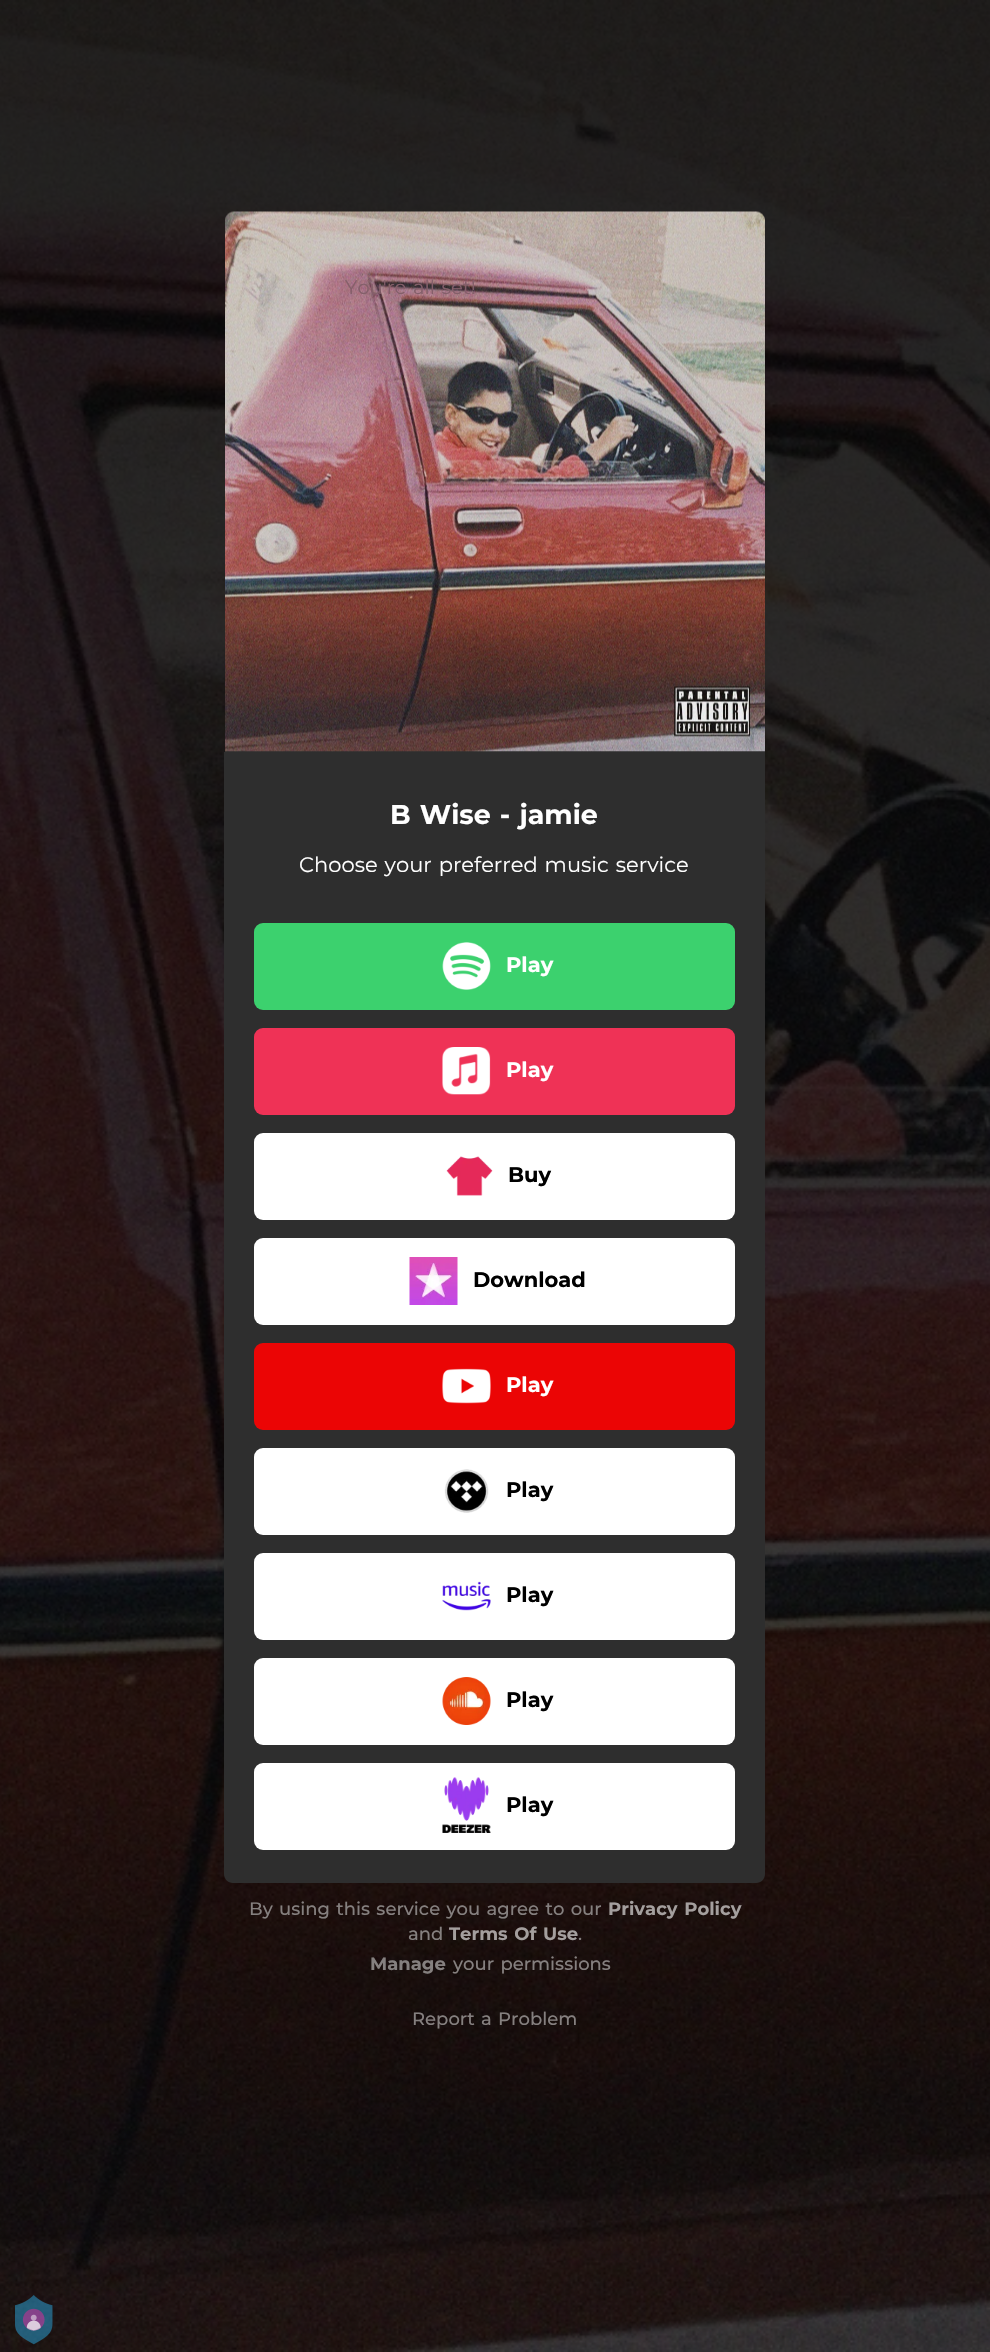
static SkFont makeFont(const char* family, int weight, float size, bool italic = false) {
  SkFontStyle style(weight, SkFontStyle::kNormal_Width,
    italic ? SkFontStyle::kItalic_Slant : SkFontStyle::kUpright_Slant);
  SkFont result(fontMgr->matchFamilyStyle(family, style), size);
  result.setSubpixel(true);
  return result;
}

static void text(SkCanvas* c, const char* s, float x, float y, const SkFont& font, SkColor color) {
  SkPaint ink(SkColor4f::FromColor(color));
  ink.setAntiAlias(true);
  c->drawString(s, x, y, font, ink);
}

static void spacedText(SkCanvas* c, const char* s, float x, float y, const SkFont& font, const SkPaint& ink, float letter, float word) {
  std::vector<SkGlyphID> glyphs(font.countText(s, strlen(s), SkTextEncoding::kUTF8));
  std::vector<float> xs(glyphs.size());
  font.textToGlyphs(s, strlen(s), SkTextEncoding::kUTF8, glyphs);
  font.getXPos(glyphs, xs, x);
  float extra = 0;
  for (size_t i = 0; i < glyphs.size(); i++) {
    xs[i] += extra;
    extra += letter + word * (glyphs[i] == font.unicharToGlyph(' '));
  }
  c->drawTextBlob(SkTextBlob::MakeFromPosHGlyphs(glyphs, xs, y, font), 0, 0, ink);
}

static void roundBox(SkCanvas* c, float l, float t, float r, float b, float radius, SkColor color) {
  SkPaint ink(SkColor4f::FromColor(color));
  ink.setAntiAlias(true);
  c->drawRoundRect(SkRect::MakeLTRB(l, t, r, b), radius, radius, ink);
}

static void picture(SkCanvas* c, const char* path, float l, float t, float r, float b) {
  auto image = SkImages::DeferredFromEncodedData(SkData::MakeFromFileName(path));
  c->drawImageRect(image, SkRect::MakeLTRB(l, t, r, b), SkSamplingOptions());
}

void draw(SkCanvas* c) {
  SkPaint paint;
  paint.setAntiAlias(true);
  c->clear(0xffffffff);
  picture(c, "img_01.png", 0, 0, 990, 2352);
  paint.setColor(0xff2f2f2f);
  c->drawPath(SkPathBuilder().moveTo(234, 212).lineTo(756, 212).cubicTo(761, 212, 765, 216, 765, 221).lineTo(765, 752).lineTo(225, 752).lineTo(225, 221).cubicTo(225, 216, 229, 212, 234, 212).close().detach(), paint);
  picture(c, "img_02.png", 225, 211, 765, 752);
  SkFont face1 = makeFont("Montserrat", 400, 19.5f);
  paint.setColor(0xff845f6a);
  spacedText(c, "You're all set!", 345, 294, face1, paint, 0, 1.5f);
  paint.setColor(0xff2e2e2e);
  c->drawPath(SkPathBuilder().moveTo(224, 752).lineTo(765, 752).lineTo(765, 1874).cubicTo(765, 1879, 761, 1883, 756, 1883).lineTo(233, 1883).cubicTo(228, 1883, 224, 1879, 224, 1874).close().detach(), paint);
  SkFont face2 = makeFont("Montserrat", 700, 27);
  paint.setColor(0xffffffff);
  spacedText(c, "B Wise - jamie", 390, 824, face2, paint, 0, 1.5f);
  SkFont face3 = makeFont("Montserrat", 400, 21);
  spacedText(c, "Choose your preferred music service", 299, 872, face3, paint, 0, 1.5f);
  roundBox(c, 254, 923, 735, 1010, 9, 0xff3cd16e);
  picture(c, "img_03.png", 442, 942, 491, 990);
  SkFont face4 = makeFont("Montserrat", 700, 21);
  text(c, "Play", 506, 972, face4, 0xffffffff);
  roundBox(c, 254, 1028, 735, 1115, 9, 0xffef3256);
  picture(c, "img_04.png", 442, 1047, 491, 1095);
  text(c, "Play", 506, 1077, face4, 0xffffffff);
  roundBox(c, 254, 1133, 735, 1220, 9, 0xffffffff);
  picture(c, "img_05.png", 446, 1156, 493, 1196);
  text(c, "Buy", 508, 1182, face4, 0xff000000);
  roundBox(c, 254, 1238, 735, 1325, 9, 0xffffffff);
  picture(c, "img_06.png", 409, 1257, 458, 1305);
  text(c, "Download", 473, 1287, face4, 0xff000000);
  roundBox(c, 254, 1343, 735, 1430, 9, 0xffeb0505);
  picture(c, "img_07.png", 442, 1368, 491, 1404);
  text(c, "Play", 506, 1392, face4, 0xffffffff);
  roundBox(c, 254, 1448, 735, 1535, 9, 0xffffffff);
  picture(c, "img_08.png", 444, 1469, 489, 1513);
  text(c, "Play", 506, 1497, face4, 0xff000000);
  roundBox(c, 254, 1553, 735, 1640, 9, 0xffffffff);
  picture(c, "img_09.png", 442, 1581, 491, 1611);
  text(c, "Play", 506, 1602, face4, 0xff000000);
  roundBox(c, 254, 1658, 735, 1745, 9, 0xffffffff);
  picture(c, "img_10.png", 442, 1677, 491, 1725);
  text(c, "Play", 506, 1707, face4, 0xff000000);
  roundBox(c, 254, 1763, 735, 1850, 9, 0xffffffff);
  picture(c, "img_11.png", 442, 1777, 491, 1833);
  text(c, "Play", 506, 1812, face4, 0xff000000);
  SkFont face5 = makeFont("Montserrat", 500, 18);
  paint.setColor(0xff85807f);
  spacedText(c, "By using this service you agree to our", 249, 1915, face5, paint, 0, 1.5f);
  SkFont face6 = makeFont("Montserrat", 700, 18);
  paint.setColor(0xffa49f9e);
  spacedText(c, "Privacy Policy", 608, 1915, face6, paint, 0, 1.5f);
  text(c, "and", 408, 1940, face5, 0xff85807f);
  spacedText(c, "Terms Of Use", 449, 1940, face6, paint, 0, 1.5f);
  text(c, ".", 578, 1940, face5, 0xff85807f);
  text(c, "Manage", 370, 1970, face6, 0xff85807f);
  paint.setColor(0xff85807f);
  spacedText(c, "your permissions", 453, 1970, face5, paint, 0, 1.5f);
  spacedText(c, "Report a Problem", 412, 2025, face5, paint, 0, 1.5f);
  picture(c, "img_12.png", 15, 2295, 53, 2345);
}
